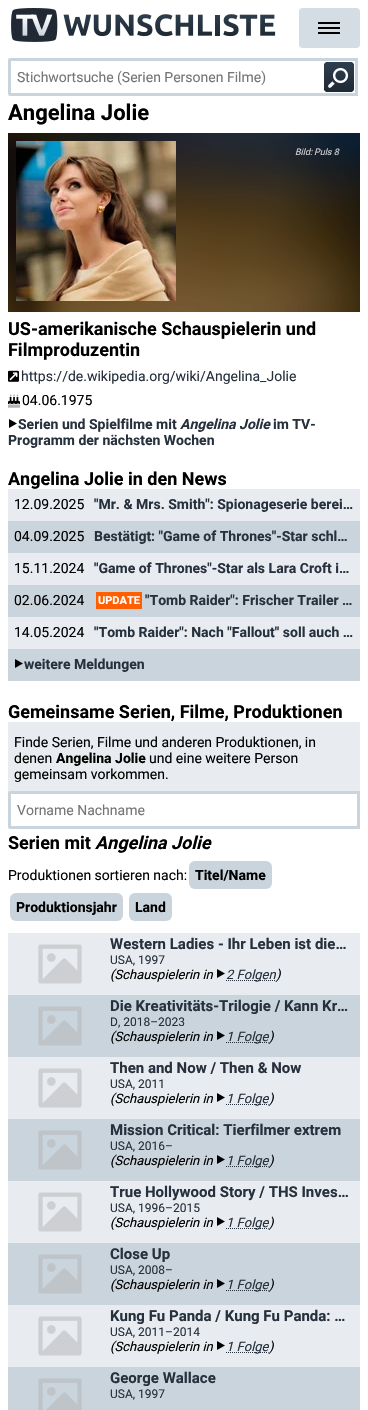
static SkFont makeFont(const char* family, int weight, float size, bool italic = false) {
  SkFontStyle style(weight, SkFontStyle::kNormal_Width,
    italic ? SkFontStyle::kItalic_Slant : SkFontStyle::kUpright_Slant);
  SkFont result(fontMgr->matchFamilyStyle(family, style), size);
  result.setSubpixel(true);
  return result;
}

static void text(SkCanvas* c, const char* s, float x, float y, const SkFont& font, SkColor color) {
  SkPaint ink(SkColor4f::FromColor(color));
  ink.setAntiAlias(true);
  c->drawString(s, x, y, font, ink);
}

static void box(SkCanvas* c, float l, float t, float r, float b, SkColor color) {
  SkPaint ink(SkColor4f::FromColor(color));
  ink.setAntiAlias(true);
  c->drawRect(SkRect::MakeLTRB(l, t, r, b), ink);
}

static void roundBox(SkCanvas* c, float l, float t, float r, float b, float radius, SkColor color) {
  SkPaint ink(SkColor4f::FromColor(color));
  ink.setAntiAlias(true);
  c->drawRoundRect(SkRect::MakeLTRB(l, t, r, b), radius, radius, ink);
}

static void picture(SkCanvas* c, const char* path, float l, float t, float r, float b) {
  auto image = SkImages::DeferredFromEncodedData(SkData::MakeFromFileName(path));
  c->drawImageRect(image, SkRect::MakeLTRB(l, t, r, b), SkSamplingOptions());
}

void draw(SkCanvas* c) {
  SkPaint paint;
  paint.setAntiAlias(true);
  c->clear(0xffffffff);
  roundBox(c, 299, 8, 360, 48, 4, 0xffd5dde4);
  box(c, 318, 22, 340, 24, 0xff000000);
  box(c, 318, 27, 340, 29, 0xff000000);
  box(c, 318, 32, 340, 34, 0xff000000);
  picture(c, "img_01.png", 11, 8, 276, 42);
  paint.setStyle(SkPaint::kStroke_Style);
  paint.setStrokeWidth(3);
  paint.setColor(0xffcad4dd);
  c->drawPath(SkPathBuilder().moveTo(10, 59.5f).lineTo(356.5f, 59.5f).lineTo(356.5f, 94.5f).lineTo(10, 94.5f).cubicTo(9.5f, 94.5f, 9.5f, 94.5f, 9.5f, 94).lineTo(9.5f, 60).cubicTo(9.5f, 59.5f, 9.5f, 59.5f, 10, 59.5f).close().detach(), paint);
  SkFont face1 = makeFont("Roboto", 400, 14);
  text(c, "Stichwortsuche (Serien Personen Filme)", 17, 82, face1, 0xff757575);
  picture(c, "img_02.png", 324, 62, 354, 92);
  SkFont face2 = makeFont("Roboto", 700, 22);
  text(c, "Angelina Jolie", 8, 120, face2, 0xff000000);
  picture(c, "img_03.png", 8, 133, 360, 312);
  picture(c, "img_04.png", 16, 141, 176, 301);
  SkFont face3 = makeFont("Roboto", 400, 9, true);
  text(c, "Bild:", 295, 155, face3, 0xffd1d3d5);
  text(c, "Puls 8", 314, 155, face3, 0xffd1d3d5);
  SkFont face4 = makeFont("Roboto", 700, 18);
  text(c, "US-amerikanische Schauspielerin und", 8, 335, face4, 0xff000000);
  text(c, "Filmproduzentin", 8, 356, face4, 0xff000000);
  picture(c, "img_05.png", 8, 370, 19, 382);
  text(c, "https://de.wikipedia.org/wiki/Angelina_Jolie", 21, 381, face1, 0xff27313d);
  picture(c, "img_06.png", 8, 394, 20, 408);
  text(c, "04.06.1975", 22, 405, face1, 0xff000000);
  picture(c, "img_07.png", 9, 419, 17, 428);
  SkFont face5 = makeFont("Roboto", 700, 14);
  text(c, "Serien und Spielfilme mit", 18, 429, face5, 0xff27313d);
  SkFont face6 = makeFont("Roboto", 700, 14, true);
  text(c, "Angelina Jolie", 180, 429, face6, 0xff27313d);
  text(c, "im TV-", 273, 429, face5, 0xff27313d);
  text(c, "Programm der nächsten Wochen", 8, 445, face5, 0xff27313d);
  text(c, "Angelina Jolie in den News", 8, 485, face4, 0xff000000);
  box(c, 8, 489, 360, 521, 0xffe8ebf0);
  text(c, "12.09.2025", 14, 509, face1, 0xff000000);
  text(c, "\"Mr. & Mrs. Smith\": Spionageserie berei…", 94, 509, face5, 0xff27313d);
  box(c, 8, 521, 360, 553, 0xffcad4dd);
  text(c, "04.09.2025", 14, 541, face1, 0xff000000);
  text(c, "Bestätigt: \"Game of Thrones\"-Star schl…", 94, 541, face5, 0xff27313d);
  box(c, 8, 553, 360, 585, 0xffe8ebf0);
  text(c, "15.11.2024", 14, 573, face1, 0xff000000);
  text(c, "\"Game of Thrones\"-Star als Lara Croft i…", 94, 573, face5, 0xff27313d);
  box(c, 8, 585, 360, 617, 0xffcad4dd);
  text(c, "02.06.2024", 14, 605, face1, 0xff000000);
  box(c, 96, 592, 142, 609, 0xffff5f01);
  SkFont face7 = makeFont("Roboto", 700, 11);
  text(c, "UPDATE", 98, 604, face7, 0xffffffff);
  text(c, "\"Tomb Raider\": Frischer Trailer …", 145, 605, face5, 0xff27313d);
  box(c, 8, 617, 360, 649, 0xffe8ebf0);
  text(c, "14.05.2024", 14, 637, face1, 0xff000000);
  text(c, "\"Tomb Raider\": Nach \"Fallout\" soll auch …", 94, 637, face5, 0xff27313d);
  box(c, 8, 649, 360, 681, 0xffcad4dd);
  picture(c, "img_08.png", 15, 659, 23, 668);
  text(c, "weitere Meldungen", 24, 669, face5, 0xff27313d);
  text(c, "Gemeinsame Serien, Filme, Produktionen", 8, 718, face4, 0xff000000);
  box(c, 8, 722, 360, 793, 0xffe8ebf0);
  text(c, "Finde Serien, Filme und anderen Produktionen, in", 14, 747, face1, 0xff000000);
  text(c, "denen", 14, 763, face1, 0xff000000);
  text(c, "Angelina Jolie", 56, 763, face5, 0xff000000);
  text(c, "und eine weitere Person", 149, 763, face1, 0xff000000);
  text(c, "gemeinsam vorkommen.", 14, 779, face1, 0xff000000);
  paint.setStyle(SkPaint::kFill_Style);
  paint.setColor(0xffffffff);
  c->drawPath(SkPathBuilder().moveTo(10, 792.5f).lineTo(358.5f, 792.5f).lineTo(358.5f, 827.5f).lineTo(10, 827.5f).cubicTo(9.5f, 827.5f, 9.5f, 827.5f, 9.5f, 827).lineTo(9.5f, 793).cubicTo(9.5f, 792.5f, 9.5f, 792.5f, 10, 792.5f).close().detach(), paint);
  paint.setStyle(SkPaint::kStroke_Style);
  paint.setColor(0xffcad4dd);
  c->drawPath(SkPathBuilder().moveTo(10, 792.5f).lineTo(358.5f, 792.5f).lineTo(358.5f, 827.5f).lineTo(10, 827.5f).cubicTo(9.5f, 827.5f, 9.5f, 827.5f, 9.5f, 827).lineTo(9.5f, 793).cubicTo(9.5f, 792.5f, 9.5f, 792.5f, 10, 792.5f).close().detach(), paint);
  text(c, "Vorname Nachname", 17, 815, face1, 0xff757575);
  text(c, "Serien mit", 8, 849, face4, 0xff000000);
  SkFont face8 = makeFont("Roboto", 700, 18, true);
  text(c, "Angelina Jolie", 95, 849, face8, 0xff000000);
  text(c, "Produktionen sortieren nach:", 8, 880, face1, 0xff000000);
  roundBox(c, 189, 861, 272, 889, 6, 0xffcad4dd);
  text(c, "Titel/Name", 195, 880, face5, 0xff000000);
  roundBox(c, 10, 893, 123, 921, 6, 0xffcad4dd);
  text(c, "Produktionsjahr", 16, 912, face5, 0xff000000);
  roundBox(c, 129, 893, 172, 921, 6, 0xffcad4dd);
  text(c, "Land", 135, 912, face5, 0xff000000);
  box(c, 8, 933, 360, 995, 0xffe8ebf0);
  picture(c, "img_09.png", 38, 944, 82, 984);
  SkFont face9 = makeFont("Roboto", 700, 15);
  text(c, "Western Ladies - Ihr Leben ist die…", 110, 949, face9, 0xff27313d);
  SkFont face10 = makeFont("Roboto", 400, 12);
  text(c, "USA, 1997", 110, 964, face10, 0xff27313d);
  SkFont face11 = makeFont("Roboto", 400, 13, true);
  text(c, "(Schauspielerin in", 110, 979, face11, 0xff000000);
  picture(c, "img_10.png", 217, 969, 225, 978);
  paint.setStrokeWidth(1);
  paint.setColor(0xff27313d);
  paint.setPathEffect(SkDashPathEffect::Make({{1, 1}}, 0));
  c->drawPath(SkPathBuilder().moveTo(226, 980.5f).lineTo(275.5f, 980.5f).detach(), paint);
  paint.setPathEffect(nullptr);
  text(c, "2 Folgen", 226, 979, face11, 0xff27313d);
  text(c, ")", 276, 979, face11, 0xff000000);
  box(c, 8, 995, 360, 1057, 0xffcad4dd);
  picture(c, "img_11.png", 38, 1006, 82, 1046);
  text(c, "Die Kreativitäts-Trilogie / Kann Kr…", 110, 1011, face9, 0xff27313d);
  text(c, "D, 2018–2023", 110, 1026, face10, 0xff27313d);
  text(c, "(Schauspielerin in", 110, 1041, face11, 0xff000000);
  picture(c, "img_08.png", 217, 1031, 225, 1040);
  paint.setPathEffect(SkDashPathEffect::Make({{1, 1}}, 0));
  c->drawPath(SkPathBuilder().moveTo(226, 1042.5f).lineTo(268.5f, 1042.5f).detach(), paint);
  paint.setPathEffect(nullptr);
  text(c, "1 Folge", 226, 1041, face11, 0xff27313d);
  text(c, ")", 269, 1041, face11, 0xff000000);
  box(c, 8, 1057, 360, 1119, 0xffe8ebf0);
  picture(c, "img_09.png", 38, 1068, 82, 1108);
  text(c, "Then and Now / Then & Now", 110, 1073, face9, 0xff27313d);
  text(c, "USA, 2011", 110, 1088, face10, 0xff27313d);
  text(c, "(Schauspielerin in", 110, 1103, face11, 0xff000000);
  picture(c, "img_10.png", 217, 1093, 225, 1102);
  paint.setPathEffect(SkDashPathEffect::Make({{1, 1}}, 0));
  c->drawPath(SkPathBuilder().moveTo(226, 1104.5f).lineTo(268.5f, 1104.5f).detach(), paint);
  paint.setPathEffect(nullptr);
  text(c, "1 Folge", 226, 1103, face11, 0xff27313d);
  text(c, ")", 269, 1103, face11, 0xff000000);
  box(c, 8, 1119, 360, 1181, 0xffcad4dd);
  picture(c, "img_11.png", 38, 1130, 82, 1170);
  text(c, "Mission Critical: Tierfilmer extrem", 110, 1135, face9, 0xff27313d);
  text(c, "USA, 2016–", 110, 1150, face10, 0xff27313d);
  text(c, "(Schauspielerin in", 110, 1165, face11, 0xff000000);
  picture(c, "img_08.png", 217, 1155, 225, 1164);
  paint.setPathEffect(SkDashPathEffect::Make({{1, 1}}, 0));
  c->drawPath(SkPathBuilder().moveTo(226, 1166.5f).lineTo(268.5f, 1166.5f).detach(), paint);
  paint.setPathEffect(nullptr);
  text(c, "1 Folge", 226, 1165, face11, 0xff27313d);
  text(c, ")", 269, 1165, face11, 0xff000000);
  box(c, 8, 1181, 360, 1243, 0xffe8ebf0);
  picture(c, "img_09.png", 38, 1192, 82, 1232);
  text(c, "True Hollywood Story / THS Inves…", 110, 1197, face9, 0xff27313d);
  text(c, "USA, 1996–2015", 110, 1212, face10, 0xff27313d);
  text(c, "(Schauspielerin in", 110, 1227, face11, 0xff000000);
  picture(c, "img_10.png", 217, 1217, 225, 1226);
  paint.setPathEffect(SkDashPathEffect::Make({{1, 1}}, 0));
  c->drawPath(SkPathBuilder().moveTo(226, 1228.5f).lineTo(268.5f, 1228.5f).detach(), paint);
  paint.setPathEffect(nullptr);
  text(c, "1 Folge", 226, 1227, face11, 0xff27313d);
  text(c, ")", 269, 1227, face11, 0xff000000);
  box(c, 8, 1243, 360, 1305, 0xffcad4dd);
  picture(c, "img_11.png", 38, 1254, 82, 1294);
  text(c, "Close Up", 110, 1259, face9, 0xff27313d);
  text(c, "USA, 2008–", 110, 1274, face10, 0xff27313d);
  text(c, "(Schauspielerin in", 110, 1289, face11, 0xff000000);
  picture(c, "img_08.png", 217, 1279, 225, 1288);
  paint.setPathEffect(SkDashPathEffect::Make({{1, 1}}, 0));
  c->drawPath(SkPathBuilder().moveTo(226, 1290.5f).lineTo(268.5f, 1290.5f).detach(), paint);
  paint.setPathEffect(nullptr);
  text(c, "1 Folge", 226, 1289, face11, 0xff27313d);
  text(c, ")", 269, 1289, face11, 0xff000000);
  box(c, 8, 1305, 360, 1367, 0xffe8ebf0);
  picture(c, "img_09.png", 38, 1316, 82, 1356);
  text(c, "Kung Fu Panda / Kung Fu Panda: …", 110, 1321, face9, 0xff27313d);
  text(c, "USA, 2011–2014", 110, 1336, face10, 0xff27313d);
  text(c, "(Schauspielerin in", 110, 1351, face11, 0xff000000);
  picture(c, "img_10.png", 217, 1341, 225, 1350);
  paint.setPathEffect(SkDashPathEffect::Make({{1, 1}}, 0));
  c->drawPath(SkPathBuilder().moveTo(226, 1352.5f).lineTo(268.5f, 1352.5f).detach(), paint);
  paint.setPathEffect(nullptr);
  text(c, "1 Folge", 226, 1351, face11, 0xff27313d);
  text(c, ")", 269, 1351, face11, 0xff000000);
  box(c, 8, 1367, 360, 1410, 0xffcad4dd);
  picture(c, "img_12.png", 38, 1378, 82, 1410);
  text(c, "George Wallace", 110, 1383, face9, 0xff27313d);
  text(c, "USA, 1997", 110, 1398, face10, 0xff27313d);
}
